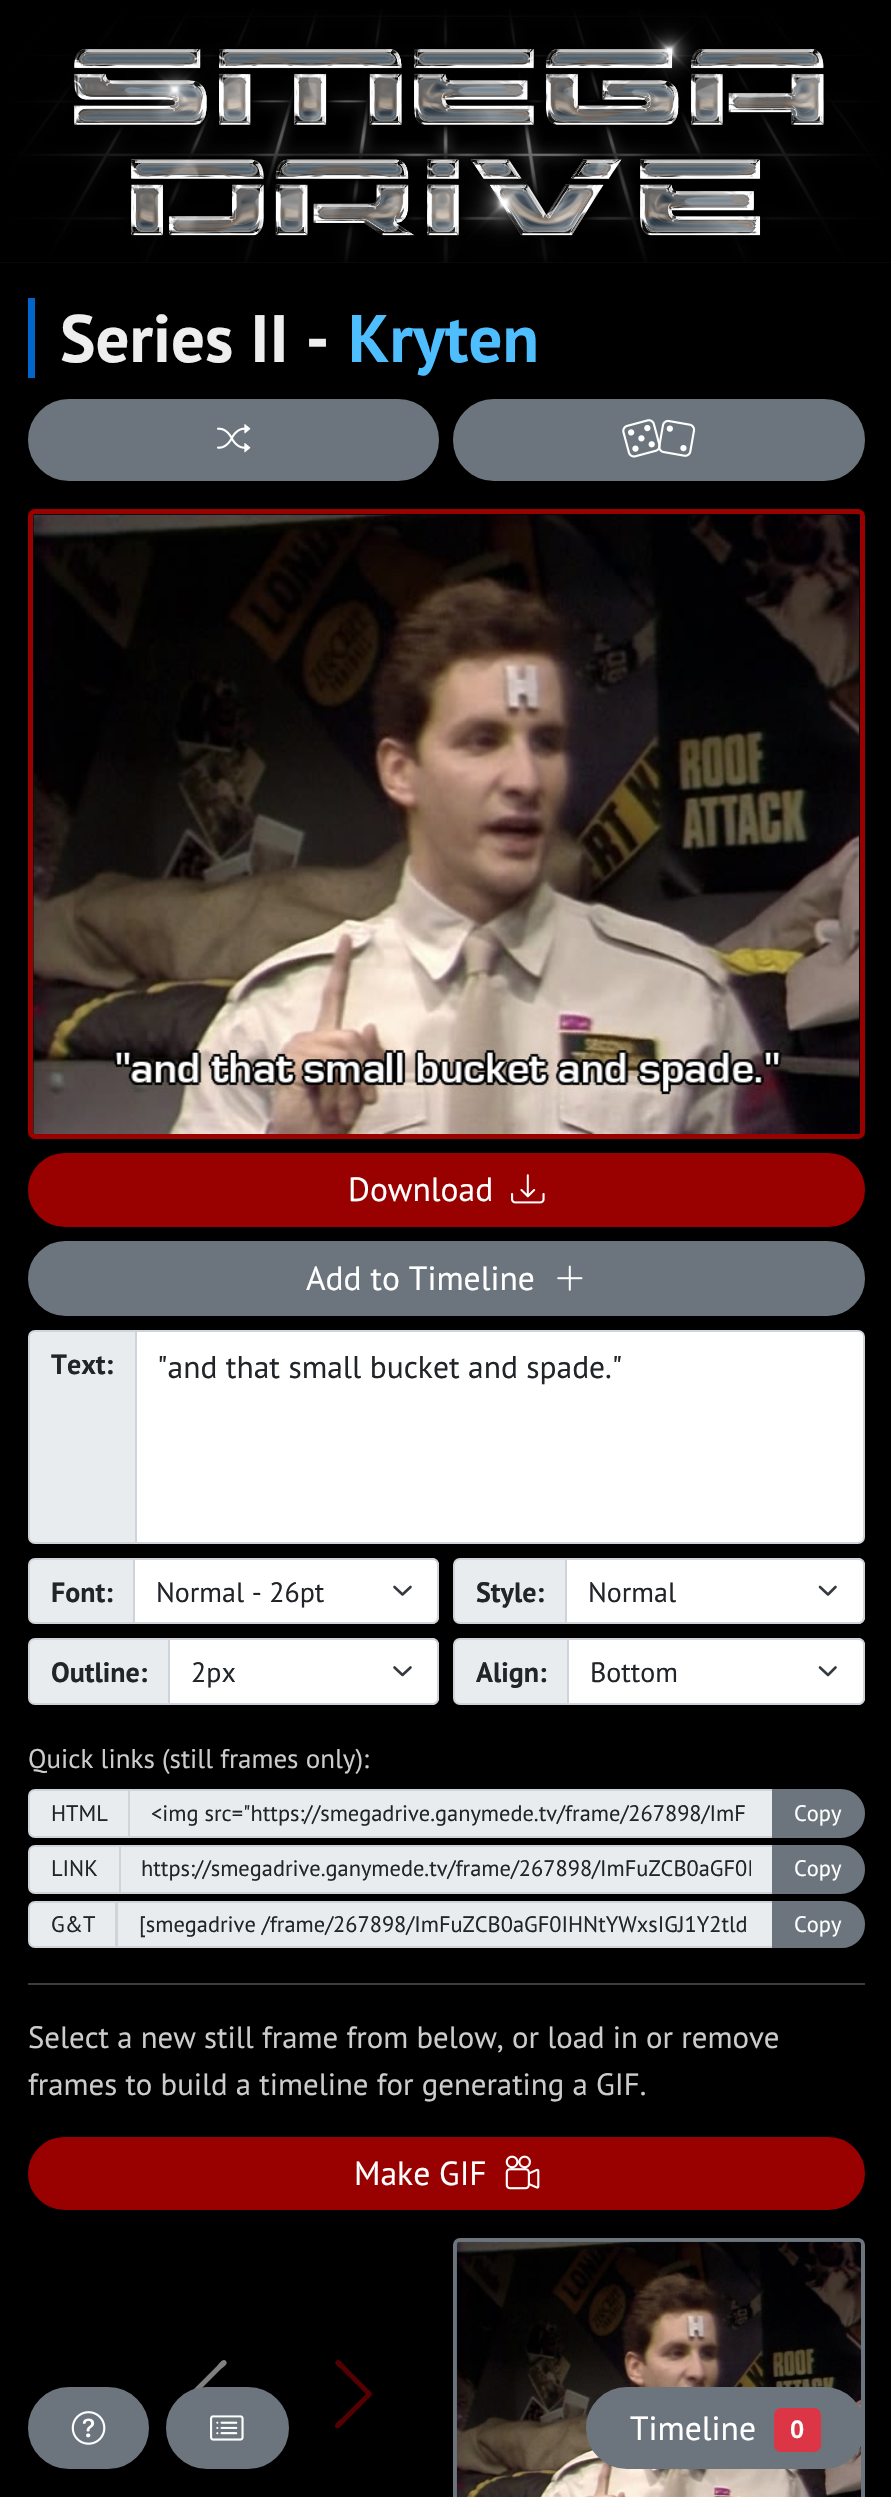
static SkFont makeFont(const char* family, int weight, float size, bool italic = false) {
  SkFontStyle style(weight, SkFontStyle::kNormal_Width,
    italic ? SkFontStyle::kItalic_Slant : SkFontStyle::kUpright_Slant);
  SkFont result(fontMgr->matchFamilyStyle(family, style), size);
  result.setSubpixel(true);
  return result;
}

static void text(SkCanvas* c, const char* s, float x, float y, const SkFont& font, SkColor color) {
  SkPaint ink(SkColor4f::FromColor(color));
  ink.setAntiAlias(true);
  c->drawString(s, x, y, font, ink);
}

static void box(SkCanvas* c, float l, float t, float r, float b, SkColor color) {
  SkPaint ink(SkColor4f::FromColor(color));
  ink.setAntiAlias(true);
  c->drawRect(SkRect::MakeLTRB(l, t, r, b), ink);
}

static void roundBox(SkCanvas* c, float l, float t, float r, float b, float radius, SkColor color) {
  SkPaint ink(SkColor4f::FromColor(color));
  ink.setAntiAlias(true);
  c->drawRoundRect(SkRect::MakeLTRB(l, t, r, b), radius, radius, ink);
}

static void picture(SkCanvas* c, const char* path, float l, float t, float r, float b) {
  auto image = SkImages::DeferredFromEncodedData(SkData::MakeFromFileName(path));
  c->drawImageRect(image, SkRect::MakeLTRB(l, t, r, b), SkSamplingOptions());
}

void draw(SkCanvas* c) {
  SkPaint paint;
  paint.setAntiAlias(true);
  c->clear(0xff101010);
  picture(c, "img_01.png", 0, 0, 891, 263);
  box(c, 0, 263, 891, 2497, 0xff000000);
  box(c, 28, 298, 35, 378, 0xff0066cc);
  SkFont face1 = makeFont("PT Sans", 700, 67);
  text(c, "Series II -", 60, 362, face1, 0xffeeeeee);
  text(c, "Kryten", 348, 362, face1, 0xff4fbeff);
  paint.setColor(0xff6c757d);
  c->drawRoundRect(SkRect::MakeLTRB(29, 400, 438, 480), 40, 40, paint);
  paint.setStyle(SkPaint::kStroke_Style);
  paint.setStrokeWidth(2);
  c->drawRoundRect(SkRect::MakeLTRB(29, 400, 438, 480), 40, 40, paint);
  picture(c, "img_02.png", 217, 424, 251, 453);
  paint.setStyle(SkPaint::kFill_Style);
  c->drawRoundRect(SkRect::MakeLTRB(454, 400, 864, 480), 40, 40, paint);
  paint.setStyle(SkPaint::kStroke_Style);
  c->drawRoundRect(SkRect::MakeLTRB(454, 400, 864, 480), 40, 40, paint);
  picture(c, "img_03.png", 622, 419, 661, 458);
  picture(c, "img_04.png", 658, 419, 696, 457);
  paint.setStrokeWidth(5);
  paint.setColor(0xff990000);
  c->drawRoundRect(SkRect::MakeLTRB(30.5f, 511.5f, 862.5f, 1136.5f), 4.5f, 4.5f, paint);
  picture(c, "img_05.png", 33, 514, 860, 1134);
  paint.setStyle(SkPaint::kFill_Style);
  c->drawRoundRect(SkRect::MakeLTRB(29, 1154, 864, 1226), 36, 36, paint);
  paint.setStyle(SkPaint::kStroke_Style);
  paint.setStrokeWidth(2);
  c->drawRoundRect(SkRect::MakeLTRB(29, 1154, 864, 1226), 36, 36, paint);
  SkFont face2 = makeFont("PT Sans", 400, 33.5f);
  text(c, "Download", 348, 1201, face2, 0xffffffff);
  picture(c, "img_06.png", 511, 1174, 545, 1204);
  paint.setStyle(SkPaint::kFill_Style);
  paint.setColor(0xff6c757d);
  c->drawRoundRect(SkRect::MakeLTRB(29, 1242, 864, 1315), 36.5f, 36.5f, paint);
  paint.setStyle(SkPaint::kStroke_Style);
  c->drawRoundRect(SkRect::MakeLTRB(29, 1242, 864, 1315), 36.5f, 36.5f, paint);
  text(c, "Add to Timeline", 306, 1290, face2, 0xffffffff);
  picture(c, "img_07.png", 557, 1265, 583, 1291);
  paint.setStyle(SkPaint::kFill_Style);
  paint.setColor(0xffe9ecef);
  c->drawPath(SkPathBuilder().moveTo(35, 1331).lineTo(136, 1331).lineTo(136, 1543).lineTo(35, 1543).cubicTo(31.5f, 1543, 29, 1540.5f, 29, 1537).lineTo(29, 1337).cubicTo(29, 1333.5f, 31.5f, 1331, 35, 1331).close().detach(), paint);
  paint.setStyle(SkPaint::kStroke_Style);
  paint.setColor(0xffced4da);
  c->drawPath(SkPathBuilder().moveTo(35, 1331).lineTo(136, 1331).lineTo(136, 1543).lineTo(35, 1543).cubicTo(31.5f, 1543, 29, 1540.5f, 29, 1537).lineTo(29, 1337).cubicTo(29, 1333.5f, 31.5f, 1331, 35, 1331).close().detach(), paint);
  SkFont face3 = makeFont("PT Sans", 700, 28);
  text(c, "Text:", 51, 1374, face3, 0xff212529);
  paint.setStyle(SkPaint::kFill_Style);
  paint.setColor(0xffffffff);
  c->drawPath(SkPathBuilder().moveTo(136, 1331).lineTo(858, 1331).cubicTo(861.5f, 1331, 864, 1333.5f, 864, 1337).lineTo(864, 1537).cubicTo(864, 1540.5f, 861.5f, 1543, 858, 1543).lineTo(136, 1543).close().detach(), paint);
  paint.setStyle(SkPaint::kStroke_Style);
  paint.setColor(0xffced4da);
  c->drawPath(SkPathBuilder().moveTo(136, 1331).lineTo(858, 1331).cubicTo(861.5f, 1331, 864, 1333.5f, 864, 1337).lineTo(864, 1537).cubicTo(864, 1540.5f, 861.5f, 1543, 858, 1543).lineTo(136, 1543).close().detach(), paint);
  SkFont face4 = makeFont("PT Sans", 400, 31.5f);
  text(c, "\"and that small bucket and spade.\"", 157, 1378, face4, 0xff212529);
  paint.setStyle(SkPaint::kFill_Style);
  paint.setColor(0xffe9ecef);
  c->drawPath(SkPathBuilder().moveTo(35, 1559).lineTo(134, 1559).lineTo(134, 1623).lineTo(35, 1623).cubicTo(31.5f, 1623, 29, 1620.5f, 29, 1617).lineTo(29, 1565).cubicTo(29, 1561.5f, 31.5f, 1559, 35, 1559).close().detach(), paint);
  paint.setStyle(SkPaint::kStroke_Style);
  paint.setColor(0xffced4da);
  c->drawPath(SkPathBuilder().moveTo(35, 1559).lineTo(134, 1559).lineTo(134, 1623).lineTo(35, 1623).cubicTo(31.5f, 1623, 29, 1620.5f, 29, 1617).lineTo(29, 1565).cubicTo(29, 1561.5f, 31.5f, 1559, 35, 1559).close().detach(), paint);
  text(c, "Font:", 51, 1602, face3, 0xff212529);
  paint.setStyle(SkPaint::kFill_Style);
  paint.setColor(0xffffffff);
  c->drawPath(SkPathBuilder().moveTo(133, 1558).lineTo(432, 1558).cubicTo(436, 1558, 439, 1561, 439, 1565).lineTo(439, 1617).cubicTo(439, 1621, 436, 1624, 432, 1624).lineTo(133, 1624).close().detach(), paint);
  paint.setStyle(SkPaint::kStroke_Style);
  paint.setStrokeWidth(2.6f);
  paint.setStrokeCap(SkPaint::kRound_Cap);
  paint.setStrokeJoin(SkPaint::kRound_Join);
  paint.setColor(0xff343a40);
  c->drawPath(SkPathBuilder().moveTo(394.5f, 1587).lineTo(402.5f, 1594.5f).lineTo(410.5f, 1587).detach(), paint);
  paint.setStrokeWidth(2);
  paint.setStrokeCap(SkPaint::kButt_Cap);
  paint.setStrokeJoin(SkPaint::kMiter_Join);
  paint.setColor(0xffced4da);
  c->drawPath(SkPathBuilder().moveTo(134, 1559).lineTo(432, 1559).cubicTo(435.5f, 1559, 438, 1561.5f, 438, 1565).lineTo(438, 1617).cubicTo(438, 1620.5f, 435.5f, 1623, 432, 1623).lineTo(134, 1623).close().detach(), paint);
  SkFont face5 = makeFont("PT Sans", 400, 28);
  text(c, "Normal - 26pt", 156, 1602, face5, 0xff212529);
  paint.setStyle(SkPaint::kFill_Style);
  paint.setColor(0xffe9ecef);
  c->drawPath(SkPathBuilder().moveTo(460, 1559).lineTo(566, 1559).lineTo(566, 1623).lineTo(460, 1623).cubicTo(456.5f, 1623, 454, 1620.5f, 454, 1617).lineTo(454, 1565).cubicTo(454, 1561.5f, 456.5f, 1559, 460, 1559).close().detach(), paint);
  paint.setStyle(SkPaint::kStroke_Style);
  paint.setColor(0xffced4da);
  c->drawPath(SkPathBuilder().moveTo(460, 1559).lineTo(566, 1559).lineTo(566, 1623).lineTo(460, 1623).cubicTo(456.5f, 1623, 454, 1620.5f, 454, 1617).lineTo(454, 1565).cubicTo(454, 1561.5f, 456.5f, 1559, 460, 1559).close().detach(), paint);
  text(c, "Style:", 476, 1602, face3, 0xff212529);
  paint.setStyle(SkPaint::kFill_Style);
  paint.setColor(0xffffffff);
  c->drawPath(SkPathBuilder().moveTo(565, 1558).lineTo(858, 1558).cubicTo(862, 1558, 865, 1561, 865, 1565).lineTo(865, 1617).cubicTo(865, 1621, 862, 1624, 858, 1624).lineTo(565, 1624).close().detach(), paint);
  paint.setStyle(SkPaint::kStroke_Style);
  paint.setStrokeWidth(2.6f);
  paint.setStrokeCap(SkPaint::kRound_Cap);
  paint.setStrokeJoin(SkPaint::kRound_Join);
  paint.setColor(0xff343a40);
  c->drawPath(SkPathBuilder().moveTo(820, 1587).lineTo(828, 1594.5f).lineTo(835.5f, 1587).detach(), paint);
  paint.setStrokeWidth(2);
  paint.setStrokeCap(SkPaint::kButt_Cap);
  paint.setStrokeJoin(SkPaint::kMiter_Join);
  paint.setColor(0xffced4da);
  c->drawPath(SkPathBuilder().moveTo(566, 1559).lineTo(858, 1559).cubicTo(861.5f, 1559, 864, 1561.5f, 864, 1565).lineTo(864, 1617).cubicTo(864, 1620.5f, 861.5f, 1623, 858, 1623).lineTo(566, 1623).close().detach(), paint);
  text(c, "Normal", 588, 1602, face5, 0xff212529);
  paint.setStyle(SkPaint::kFill_Style);
  paint.setColor(0xffe9ecef);
  c->drawPath(SkPathBuilder().moveTo(35, 1639).lineTo(169, 1639).lineTo(169, 1704).lineTo(35, 1704).cubicTo(31.5f, 1704, 29, 1701.5f, 29, 1698).lineTo(29, 1645).cubicTo(29, 1641.5f, 31.5f, 1639, 35, 1639).close().detach(), paint);
  paint.setStyle(SkPaint::kStroke_Style);
  paint.setColor(0xffced4da);
  c->drawPath(SkPathBuilder().moveTo(35, 1639).lineTo(169, 1639).lineTo(169, 1704).lineTo(35, 1704).cubicTo(31.5f, 1704, 29, 1701.5f, 29, 1698).lineTo(29, 1645).cubicTo(29, 1641.5f, 31.5f, 1639, 35, 1639).close().detach(), paint);
  text(c, "Outline:", 51, 1682, face3, 0xff212529);
  paint.setStyle(SkPaint::kFill_Style);
  paint.setColor(0xffffffff);
  c->drawPath(SkPathBuilder().moveTo(168, 1638).lineTo(432, 1638).cubicTo(436, 1638, 439, 1641, 439, 1645).lineTo(439, 1698).cubicTo(439, 1702, 436, 1705, 432, 1705).lineTo(168, 1705).close().detach(), paint);
  paint.setStyle(SkPaint::kStroke_Style);
  paint.setStrokeWidth(2.6f);
  paint.setStrokeCap(SkPaint::kRound_Cap);
  paint.setStrokeJoin(SkPaint::kRound_Join);
  paint.setColor(0xff343a40);
  c->drawPath(SkPathBuilder().moveTo(394.5f, 1667.5f).lineTo(402.5f, 1675).lineTo(410.5f, 1667.5f).detach(), paint);
  paint.setStrokeWidth(2);
  paint.setStrokeCap(SkPaint::kButt_Cap);
  paint.setStrokeJoin(SkPaint::kMiter_Join);
  paint.setColor(0xffced4da);
  c->drawPath(SkPathBuilder().moveTo(169, 1639).lineTo(432, 1639).cubicTo(435.5f, 1639, 438, 1641.5f, 438, 1645).lineTo(438, 1698).cubicTo(438, 1701.5f, 435.5f, 1704, 432, 1704).lineTo(169, 1704).close().detach(), paint);
  text(c, "2px", 191, 1682, face5, 0xff212529);
  paint.setStyle(SkPaint::kFill_Style);
  paint.setColor(0xffe9ecef);
  c->drawPath(SkPathBuilder().moveTo(460, 1639).lineTo(568, 1639).lineTo(568, 1704).lineTo(460, 1704).cubicTo(456.5f, 1704, 454, 1701.5f, 454, 1698).lineTo(454, 1645).cubicTo(454, 1641.5f, 456.5f, 1639, 460, 1639).close().detach(), paint);
  paint.setStyle(SkPaint::kStroke_Style);
  paint.setColor(0xffced4da);
  c->drawPath(SkPathBuilder().moveTo(460, 1639).lineTo(568, 1639).lineTo(568, 1704).lineTo(460, 1704).cubicTo(456.5f, 1704, 454, 1701.5f, 454, 1698).lineTo(454, 1645).cubicTo(454, 1641.5f, 456.5f, 1639, 460, 1639).close().detach(), paint);
  text(c, "Align:", 476, 1682, face3, 0xff212529);
  paint.setStyle(SkPaint::kFill_Style);
  paint.setColor(0xffffffff);
  c->drawPath(SkPathBuilder().moveTo(567, 1638).lineTo(858, 1638).cubicTo(862, 1638, 865, 1641, 865, 1645).lineTo(865, 1698).cubicTo(865, 1702, 862, 1705, 858, 1705).lineTo(567, 1705).close().detach(), paint);
  paint.setStyle(SkPaint::kStroke_Style);
  paint.setStrokeWidth(2.6f);
  paint.setStrokeCap(SkPaint::kRound_Cap);
  paint.setStrokeJoin(SkPaint::kRound_Join);
  paint.setColor(0xff343a40);
  c->drawPath(SkPathBuilder().moveTo(820, 1667.5f).lineTo(828, 1675).lineTo(835.5f, 1667.5f).detach(), paint);
  paint.setStrokeWidth(2);
  paint.setStrokeCap(SkPaint::kButt_Cap);
  paint.setStrokeJoin(SkPaint::kMiter_Join);
  paint.setColor(0xffced4da);
  c->drawPath(SkPathBuilder().moveTo(568, 1639).lineTo(858, 1639).cubicTo(861.5f, 1639, 864, 1641.5f, 864, 1645).lineTo(864, 1698).cubicTo(864, 1701.5f, 861.5f, 1704, 858, 1704).lineTo(568, 1704).close().detach(), paint);
  text(c, "Bottom", 590, 1682, face5, 0xff212529);
  SkFont face6 = makeFont("PT Sans", 400, 27);
  text(c, "Quick links (still frames only):", 28, 1768, face6, 0xffcccccc);
  paint.setStyle(SkPaint::kFill_Style);
  paint.setColor(0xffe9ecef);
  c->drawPath(SkPathBuilder().moveTo(35, 1790).lineTo(129, 1790).lineTo(129, 1837).lineTo(35, 1837).cubicTo(31.5f, 1837, 29, 1834.5f, 29, 1831).lineTo(29, 1796).cubicTo(29, 1792.5f, 31.5f, 1790, 35, 1790).close().detach(), paint);
  paint.setStyle(SkPaint::kStroke_Style);
  paint.setColor(0xffced4da);
  c->drawPath(SkPathBuilder().moveTo(35, 1790).lineTo(129, 1790).lineTo(129, 1837).lineTo(35, 1837).cubicTo(31.5f, 1837, 29, 1834.5f, 29, 1831).lineTo(29, 1796).cubicTo(29, 1792.5f, 31.5f, 1790, 35, 1790).close().detach(), paint);
  SkFont face7 = makeFont("PT Sans", 400, 22.4f);
  text(c, "HTML", 51, 1821, face7, 0xff212529);
  paint.setStyle(SkPaint::kFill_Style);
  paint.setColor(0xffe9ecef);
  c->drawRect(SkRect::MakeLTRB(129, 1790, 773, 1837), paint);
  paint.setStyle(SkPaint::kStroke_Style);
  paint.setColor(0xffced4da);
  c->drawRect(SkRect::MakeLTRB(129, 1790, 773, 1837), paint);
  text(c, "<img src=\"https://smegadrive.ganymede.tv/frame/267898/ImF", 151, 1821, face7, 0xff212529);
  paint.setStyle(SkPaint::kFill_Style);
  paint.setColor(0xff6c757d);
  c->drawPath(SkPathBuilder().moveTo(773, 1790).lineTo(840.5f, 1790).cubicTo(853.5f, 1790, 864, 1800.5f, 864, 1813.5f).cubicTo(864, 1826.5f, 853.5f, 1837, 840.5f, 1837).lineTo(773, 1837).close().detach(), paint);
  paint.setStyle(SkPaint::kStroke_Style);
  c->drawPath(SkPathBuilder().moveTo(773, 1790).lineTo(840.5f, 1790).cubicTo(853.5f, 1790, 864, 1800.5f, 864, 1813.5f).cubicTo(864, 1826.5f, 853.5f, 1837, 840.5f, 1837).lineTo(773, 1837).close().detach(), paint);
  text(c, "Copy", 794, 1821, face7, 0xffffffff);
  paint.setStyle(SkPaint::kFill_Style);
  paint.setColor(0xffe9ecef);
  c->drawPath(SkPathBuilder().moveTo(35, 1846).lineTo(120, 1846).lineTo(120, 1893).lineTo(35, 1893).cubicTo(31.5f, 1893, 29, 1890.5f, 29, 1887).lineTo(29, 1852).cubicTo(29, 1848.5f, 31.5f, 1846, 35, 1846).close().detach(), paint);
  paint.setStyle(SkPaint::kStroke_Style);
  paint.setColor(0xffced4da);
  c->drawPath(SkPathBuilder().moveTo(35, 1846).lineTo(120, 1846).lineTo(120, 1893).lineTo(35, 1893).cubicTo(31.5f, 1893, 29, 1890.5f, 29, 1887).lineTo(29, 1852).cubicTo(29, 1848.5f, 31.5f, 1846, 35, 1846).close().detach(), paint);
  text(c, "LINK", 51, 1876, face7, 0xff212529);
  paint.setStyle(SkPaint::kFill_Style);
  paint.setColor(0xffe9ecef);
  c->drawRect(SkRect::MakeLTRB(120, 1846, 773, 1893), paint);
  paint.setStyle(SkPaint::kStroke_Style);
  paint.setColor(0xffced4da);
  c->drawRect(SkRect::MakeLTRB(120, 1846, 773, 1893), paint);
  c->save();
  c->clipRect(SkRect::MakeLTRB(142, 1852, 751, 1885));
  text(c, "https://smegadrive.ganymede.tv/frame/267898/ImFuZCB0aGF0I", 141, 1876, face7, 0xff212529);
  c->restore();
  paint.setStyle(SkPaint::kFill_Style);
  paint.setColor(0xff6c757d);
  c->drawPath(SkPathBuilder().moveTo(773, 1846).lineTo(840.5f, 1846).cubicTo(853.5f, 1846, 864, 1856.5f, 864, 1869.5f).cubicTo(864, 1882.5f, 853.5f, 1893, 840.5f, 1893).lineTo(773, 1893).close().detach(), paint);
  paint.setStyle(SkPaint::kStroke_Style);
  c->drawPath(SkPathBuilder().moveTo(773, 1846).lineTo(840.5f, 1846).cubicTo(853.5f, 1846, 864, 1856.5f, 864, 1869.5f).cubicTo(864, 1882.5f, 853.5f, 1893, 840.5f, 1893).lineTo(773, 1893).close().detach(), paint);
  text(c, "Copy", 794, 1876, face7, 0xffffffff);
  paint.setStyle(SkPaint::kFill_Style);
  paint.setColor(0xffe9ecef);
  c->drawPath(SkPathBuilder().moveTo(35, 1902).lineTo(116, 1902).lineTo(116, 1947).lineTo(35, 1947).cubicTo(31.5f, 1947, 29, 1944.5f, 29, 1941).lineTo(29, 1908).cubicTo(29, 1904.5f, 31.5f, 1902, 35, 1902).close().detach(), paint);
  paint.setStyle(SkPaint::kStroke_Style);
  paint.setColor(0xffced4da);
  c->drawPath(SkPathBuilder().moveTo(35, 1902).lineTo(116, 1902).lineTo(116, 1947).lineTo(35, 1947).cubicTo(31.5f, 1947, 29, 1944.5f, 29, 1941).lineTo(29, 1908).cubicTo(29, 1904.5f, 31.5f, 1902, 35, 1902).close().detach(), paint);
  text(c, "G&T", 51, 1932, face7, 0xff212529);
  paint.setStyle(SkPaint::kFill_Style);
  paint.setColor(0xffe9ecef);
  c->drawRect(SkRect::MakeLTRB(117, 1902, 773, 1947), paint);
  paint.setStyle(SkPaint::kStroke_Style);
  paint.setColor(0xffced4da);
  c->drawRect(SkRect::MakeLTRB(117, 1902, 773, 1947), paint);
  text(c, "[smegadrive /frame/267898/ImFuZCB0aGF0IHNtYWxsIGJ1Y2tld", 139, 1932, face7, 0xff212529);
  paint.setStyle(SkPaint::kFill_Style);
  paint.setColor(0xff6c757d);
  c->drawPath(SkPathBuilder().moveTo(773, 1902).lineTo(841.5f, 1902).cubicTo(854, 1902, 864, 1912, 864, 1924.5f).cubicTo(864, 1937, 854, 1947, 841.5f, 1947).lineTo(773, 1947).close().detach(), paint);
  paint.setStyle(SkPaint::kStroke_Style);
  c->drawPath(SkPathBuilder().moveTo(773, 1902).lineTo(841.5f, 1902).cubicTo(854, 1902, 864, 1912, 864, 1924.5f).cubicTo(864, 1937, 854, 1947, 841.5f, 1947).lineTo(773, 1947).close().detach(), paint);
  text(c, "Copy", 794, 1932, face7, 0xffffffff);
  box(c, 28, 1983, 865, 1985, 0xff3c3c3c);
  SkFont face8 = makeFont("PT Sans", 400, 30.8f);
  text(c, "Select a new still frame from below, or load in or remove", 28, 2048, face8, 0xffcccccc);
  text(c, "frames to build a timeline for generating a GIF.", 28, 2095, face8, 0xffcccccc);
  paint.setStyle(SkPaint::kFill_Style);
  paint.setColor(0xff990000);
  c->drawRoundRect(SkRect::MakeLTRB(29, 2138, 864, 2209), 35.5f, 35.5f, paint);
  paint.setStyle(SkPaint::kStroke_Style);
  c->drawRoundRect(SkRect::MakeLTRB(29, 2138, 864, 2209), 35.5f, 35.5f, paint);
  text(c, "Make GIF", 354, 2185, face2, 0xffffffff);
  picture(c, "img_08.png", 505, 2155, 540, 2190);
  paint.setStyle(SkPaint::kFill_Style);
  paint.setColor(0xff808080);
  c->drawPath(SkPathBuilder().moveTo(226, 2361).cubicTo(229, 2364, 222, 2368, 221, 2369).lineTo(196, 2394).lineTo(221, 2419).cubicTo(221, 2419, 228, 2424, 226, 2427).cubicTo(224, 2431, 218, 2423, 217, 2422).lineTo(196, 2401).cubicTo(188, 2393, 188, 2395, 196, 2387).lineTo(217, 2366).cubicTo(218, 2365, 223, 2357, 226, 2361).close().detach(), paint);
  paint.setColor(0xff550000);
  c->drawPath(SkPathBuilder().moveTo(336, 2361).cubicTo(339, 2357, 344, 2365, 345, 2366).lineTo(366, 2387).cubicTo(374, 2395, 374, 2393, 366, 2401).lineTo(345, 2422).cubicTo(344, 2423, 338, 2431, 335, 2427).cubicTo(334, 2424, 340, 2419, 341, 2419).lineTo(366, 2394).lineTo(341, 2369).cubicTo(340, 2368, 333, 2364, 336, 2361).close().detach(), paint);
  paint.setStyle(SkPaint::kStroke_Style);
  paint.setStrokeWidth(4);
  paint.setColor(0xff6c757d);
  c->drawRoundRect(SkRect::MakeLTRB(455, 2240, 863, 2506), 5, 5, paint);
  picture(c, "img_09.png", 456, 2241, 861, 2497);
  paint.setStyle(SkPaint::kFill_Style);
  c->drawRoundRect(SkRect::MakeLTRB(29, 2388, 148, 2468), 40, 40, paint);
  paint.setStyle(SkPaint::kStroke_Style);
  paint.setStrokeWidth(2);
  c->drawRoundRect(SkRect::MakeLTRB(29, 2388, 148, 2468), 40, 40, paint);
  picture(c, "img_10.png", 71, 2411, 106, 2445);
  paint.setStyle(SkPaint::kFill_Style);
  c->drawRoundRect(SkRect::MakeLTRB(167, 2388, 288, 2468), 40, 40, paint);
  paint.setStyle(SkPaint::kStroke_Style);
  c->drawRoundRect(SkRect::MakeLTRB(167, 2388, 288, 2468), 40, 40, paint);
  picture(c, "img_11.png", 210, 2415, 244, 2441);
  paint.setStyle(SkPaint::kFill_Style);
  c->drawRoundRect(SkRect::MakeLTRB(587, 2388, 864, 2468), 40, 40, paint);
  paint.setStyle(SkPaint::kStroke_Style);
  c->drawRoundRect(SkRect::MakeLTRB(587, 2388, 864, 2468), 40, 40, paint);
  text(c, "Timeline", 630, 2440, face2, 0xffffffff);
  roundBox(c, 774, 2408, 821, 2452, 7, 0xffdc3545);
  SkFont face9 = makeFont("PT Sans", 700, 25);
  text(c, "0", 790, 2438, face9, 0xffffffff);
}
